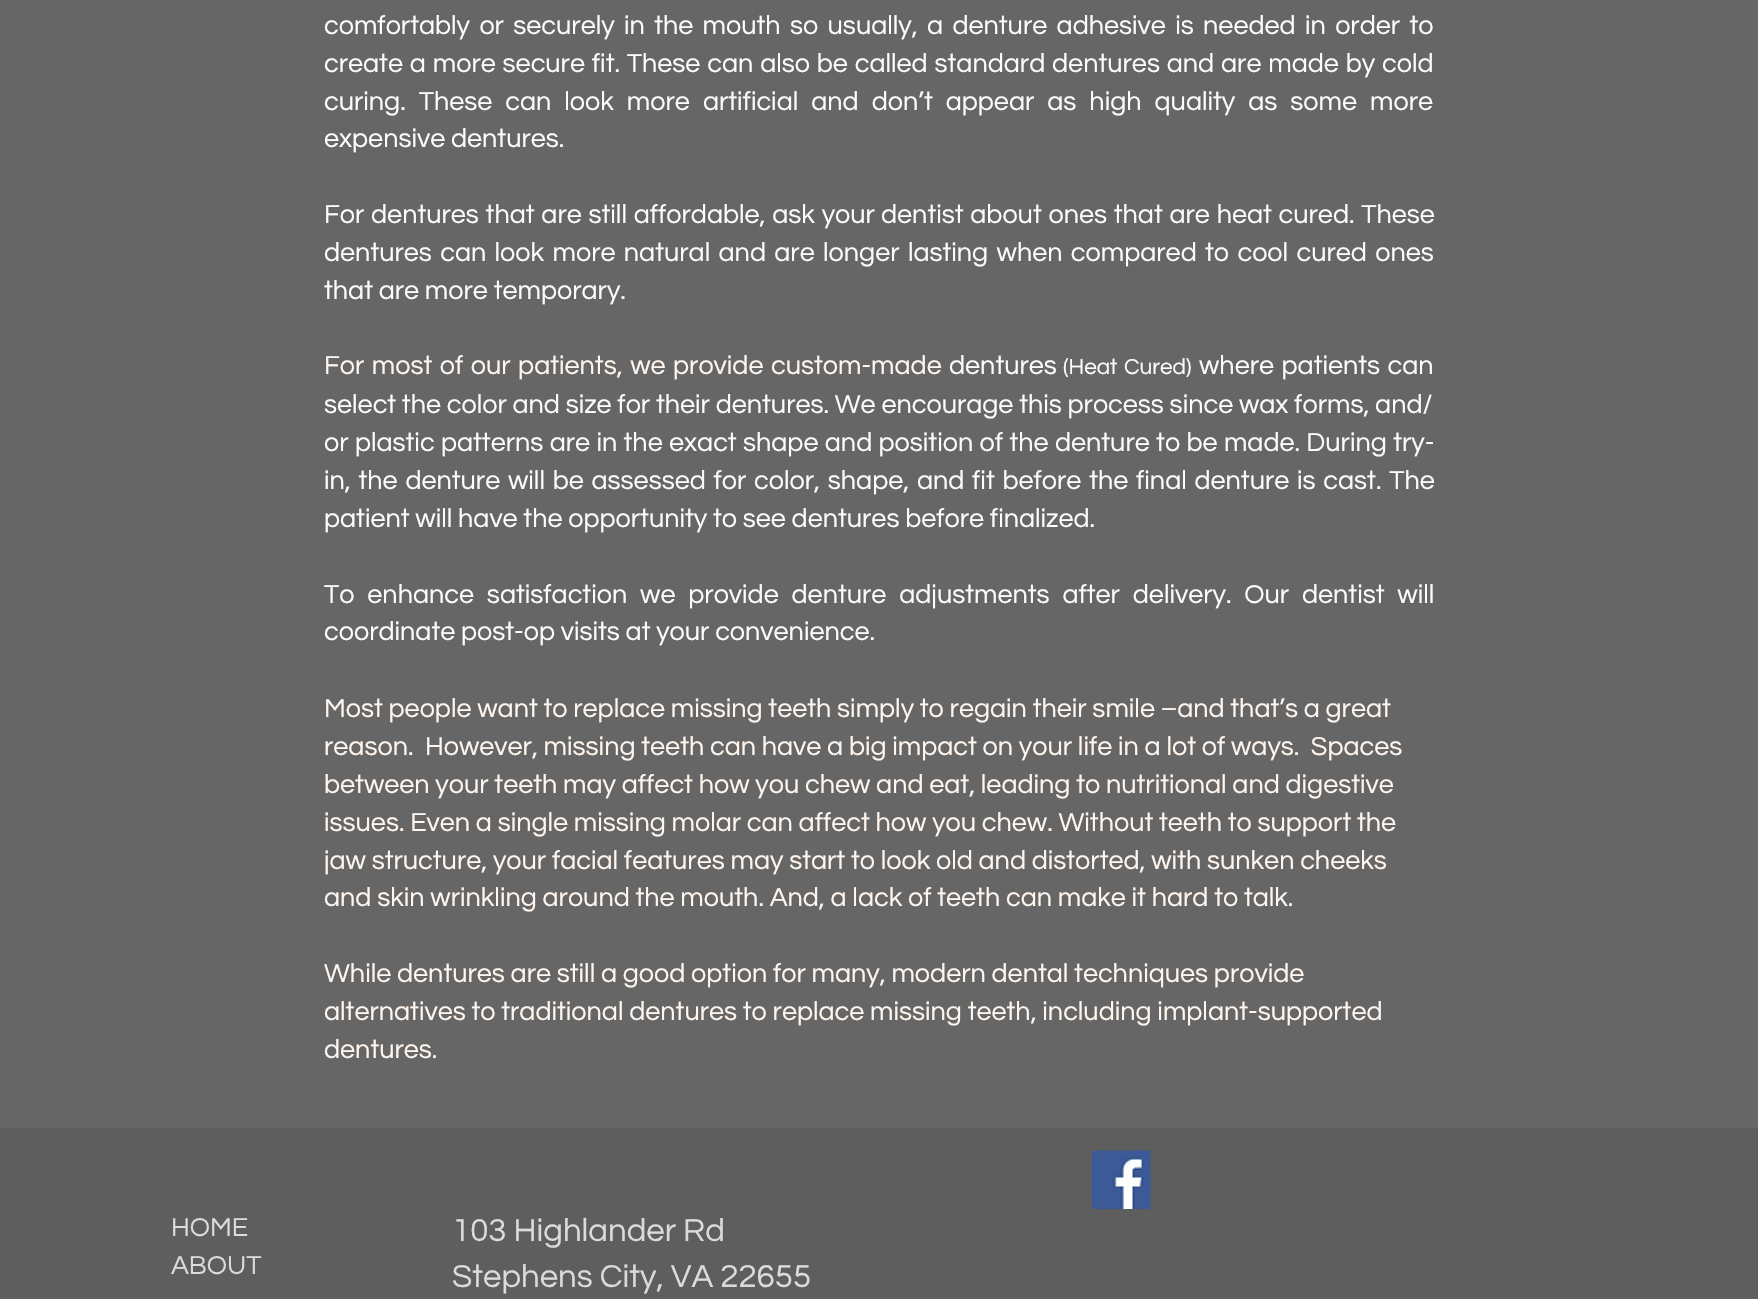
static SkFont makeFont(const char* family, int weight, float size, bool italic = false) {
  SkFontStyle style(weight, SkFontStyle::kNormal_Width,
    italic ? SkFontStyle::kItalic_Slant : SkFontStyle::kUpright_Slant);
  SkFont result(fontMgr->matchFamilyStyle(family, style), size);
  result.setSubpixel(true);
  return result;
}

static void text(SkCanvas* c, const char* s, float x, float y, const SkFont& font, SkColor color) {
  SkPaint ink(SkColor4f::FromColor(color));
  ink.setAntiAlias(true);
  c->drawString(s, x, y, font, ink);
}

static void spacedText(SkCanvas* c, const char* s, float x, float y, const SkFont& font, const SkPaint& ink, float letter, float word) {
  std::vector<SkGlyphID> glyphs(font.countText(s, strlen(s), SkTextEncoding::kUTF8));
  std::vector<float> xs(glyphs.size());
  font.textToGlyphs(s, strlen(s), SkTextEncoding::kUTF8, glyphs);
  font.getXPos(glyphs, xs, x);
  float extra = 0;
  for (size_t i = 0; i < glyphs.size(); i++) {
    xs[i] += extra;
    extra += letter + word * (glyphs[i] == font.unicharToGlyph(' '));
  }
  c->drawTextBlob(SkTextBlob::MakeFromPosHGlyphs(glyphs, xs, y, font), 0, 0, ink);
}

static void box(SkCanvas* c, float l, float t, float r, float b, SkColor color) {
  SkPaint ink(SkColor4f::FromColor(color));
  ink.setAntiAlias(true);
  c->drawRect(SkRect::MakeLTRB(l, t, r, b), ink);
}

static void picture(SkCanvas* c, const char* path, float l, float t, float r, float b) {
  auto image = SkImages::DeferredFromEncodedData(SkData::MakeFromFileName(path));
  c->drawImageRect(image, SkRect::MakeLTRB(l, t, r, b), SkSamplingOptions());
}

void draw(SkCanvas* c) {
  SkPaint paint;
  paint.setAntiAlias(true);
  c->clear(0xff666666);
  SkFont face1 = makeFont("Questrial", 400, 27);
  paint.setColor(0xfffcfcfc);
  spacedText(c, "comfortably or securely in the mouth so usually, a denture adhesive is needed in order to", 324, 34, face1, paint, 0, 3.6f);
  spacedText(c, "create a more secure fit. These can also be called standard dentures and are made by cold", 324, 72, face1, paint, 0, 1.1f);
  spacedText(c, "curing. These can look more artificial and don’t appear as high quality as some more", 324, 110, face1, paint, 0, 7.25f);
  text(c, "expensive dentures.", 324, 147, face1, 0xfffcfcfc);
  spacedText(c, "For dentures that are still affordable, ask your", 324, 223, face1, paint, 0, 1);
  spacedText(c, "dentist about ones that are heat cured. These", 881, 223, face1, paint, 0, 1);
  spacedText(c, "dentures can look more natural and are longer lasting when compared to cool cured ones", 324, 261, face1, paint, 0, 2.6f);
  text(c, "that are more temporary.", 324, 299, face1, 0xfffcfcfc);
  paint.setColor(0xfffff6ef);
  spacedText(c, "For most of our patients, we provide", 324, 374, face1, paint, 0, 1.75f);
  text(c, "custom-made", 771, 374, face1, 0xfffff6ef);
  text(c, "dentures", 949, 374, face1, 0xfffcfcfc);
  SkFont face2 = makeFont("Questrial", 400, 22.5f);
  paint.setColor(0xfffcfcfc);
  spacedText(c, "(Heat Cured)", 1063, 374, face2, paint, 0, 1.75f);
  spacedText(c, "where patients can", 1199, 374, face1, paint, 0, 1.75f);
  text(c, "select the color and size for their dentures. We encourage this process since wax forms, and/", 324, 413, face1, 0xfffcfcfc);
  spacedText(c, "or plastic patterns are in the exact shape and position of the denture to be made. During try-", 324, 451, face1, paint, 0, 0.6f);
  spacedText(c, "in, the denture will be assessed for color, shape, and fit before the final denture is cast. The", 324, 489, face1, paint, 0, 2);
  text(c, "patient will have the opportunity to see dentures before finalized.", 324, 527, face1, 0xfffcfcfc);
  spacedText(c, "To enhance satisfaction we provide denture adjustments after delivery. Our dentist will", 324, 603, face1, paint, 0, 7.1f);
  text(c, "coordinate post-op visits at your convenience.", 324, 640, face1, 0xfffcfcfc);
  text(c, "Most people want to replace missing teeth simply to regain their smile –and that’s a great", 324, 717, face1, 0xfffff6ef);
  text(c, "reason.  However, missing teeth can have a big impact on your life in a lot of ways.  Spaces", 324, 755, face1, 0xfffff6ef);
  text(c, "between your teeth may affect how you chew and eat, leading to nutritional and digestive", 324, 793, face1, 0xfffff6ef);
  text(c, "issues. Even a single missing molar can affect how you chew. Without teeth to support the", 324, 831, face1, 0xfffff6ef);
  text(c, "jaw structure, your facial features may start to look old and distorted, with sunken cheeks", 324, 869, face1, 0xfffff6ef);
  text(c, "and skin wrinkling around the mouth. And, a lack of teeth can make it hard to talk.", 324, 906, face1, 0xfffff6ef);
  text(c, "While dentures are still a good option for many, modern dental techniques provide", 324, 982, face1, 0xfffff6ef);
  text(c, "alternatives to traditional dentures to replace missing teeth, including implant-supported", 324, 1020, face1, 0xfffff6ef);
  text(c, "dentures.", 324, 1058, face1, 0xfffff6ef);
  box(c, 0, 1128, 1758, 1299, 0xff5e5e5e);
  picture(c, "img_01.png", 1092, 1150, 1151, 1209);
  text(c, "HOME", 171, 1236, face1, 0xffdbdbdb);
  text(c, "ABOUT", 171, 1274, face1, 0xffdbdbdb);
  SkFont face3 = makeFont("Questrial", 400, 33);
  text(c, "103 Highlander Rd", 452, 1241, face3, 0xffdbdbdb);
  text(c, "Stephens City, VA 22655", 452, 1287, face3, 0xffdbdbdb);
}
